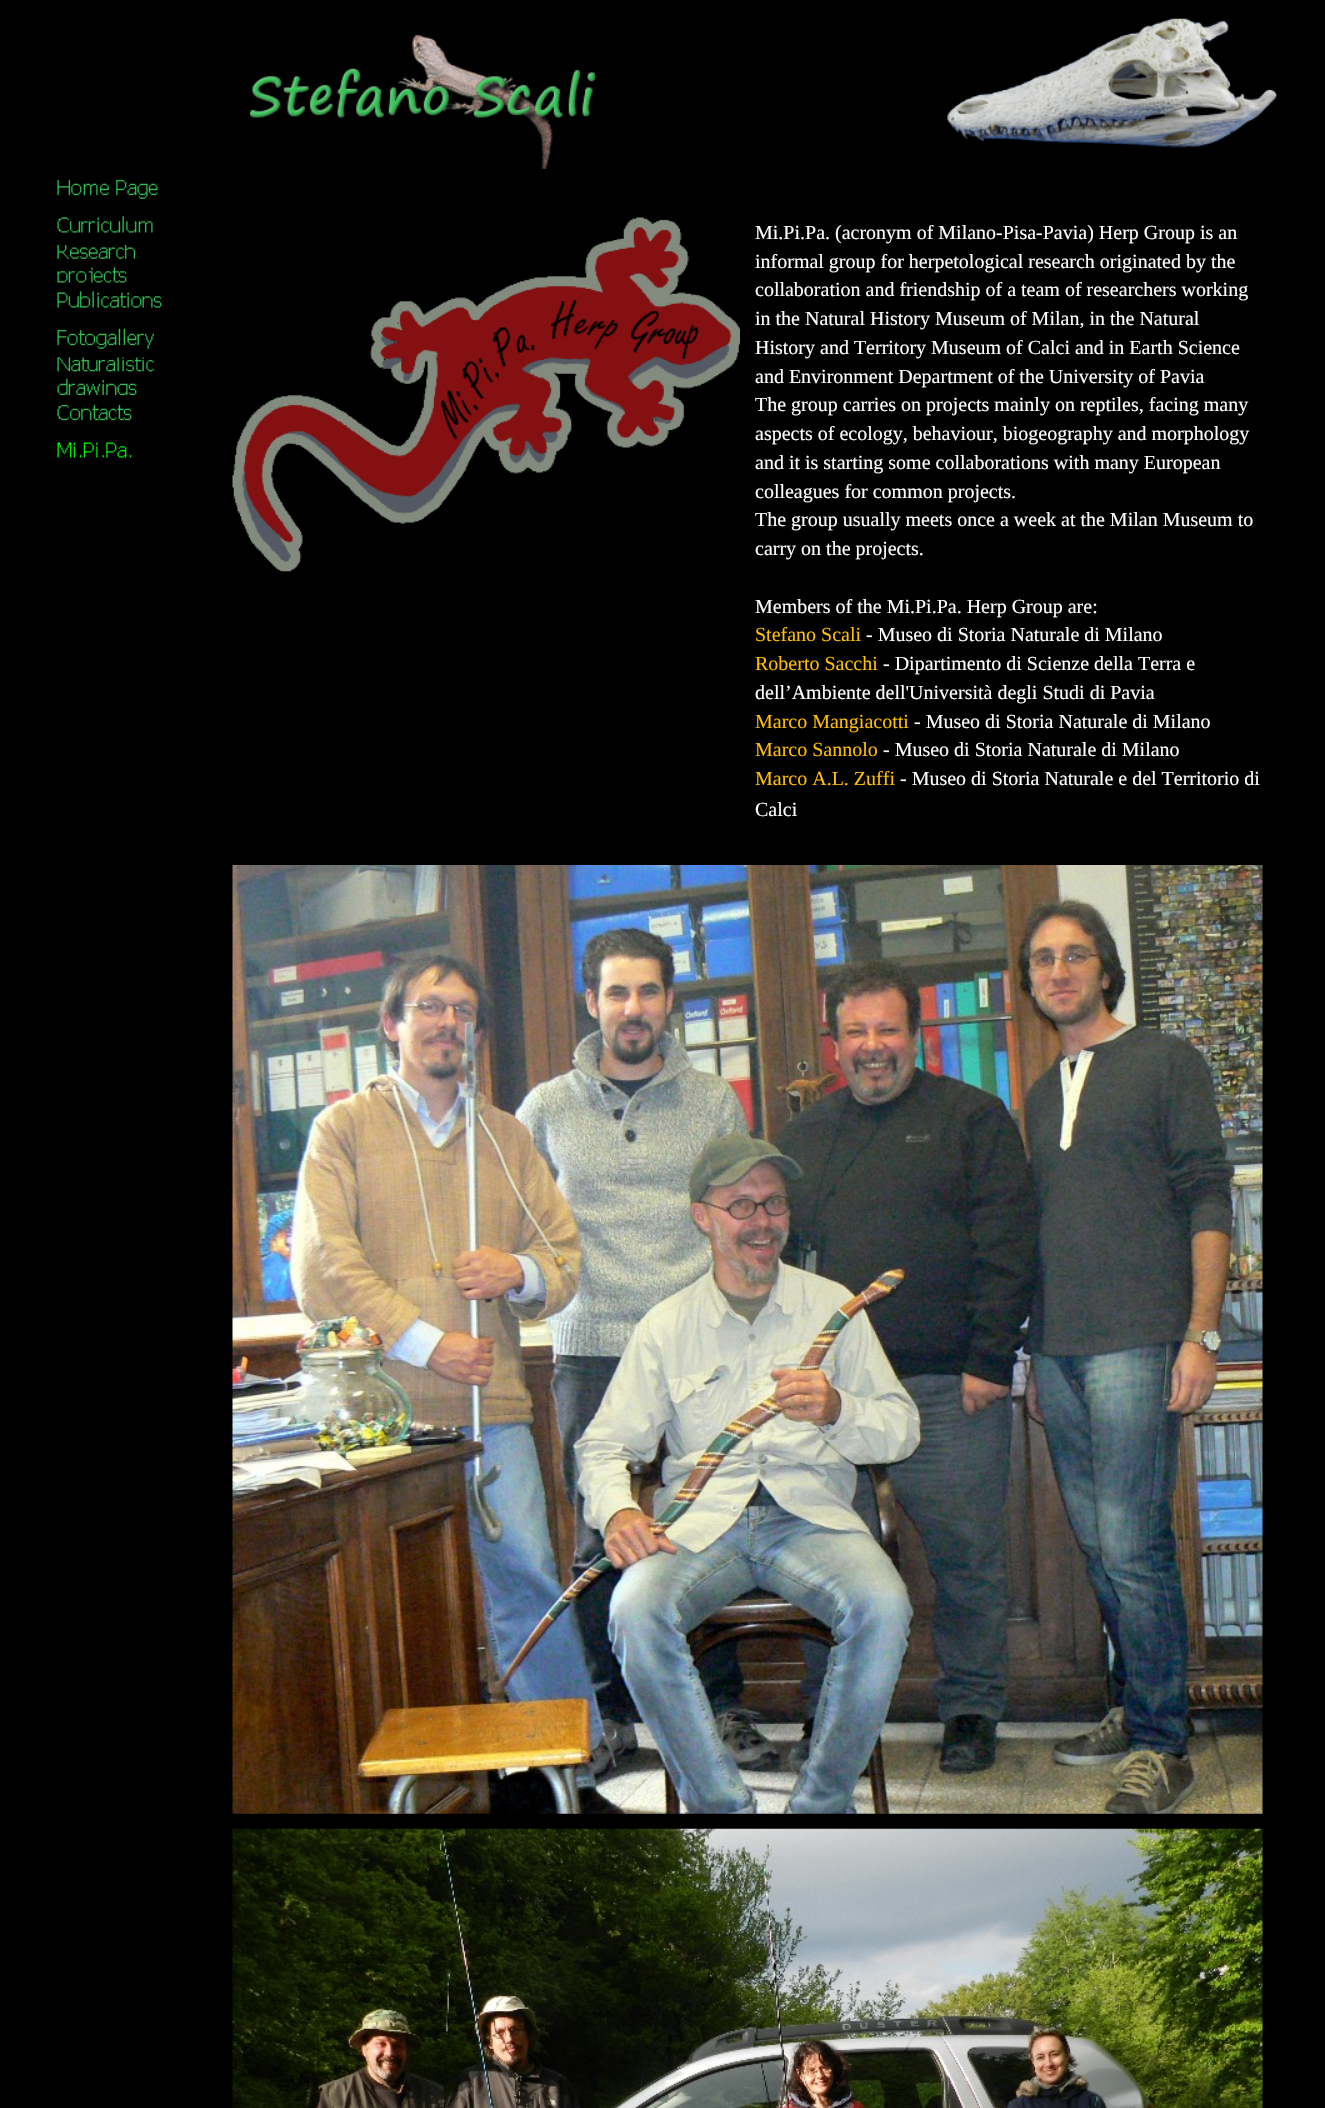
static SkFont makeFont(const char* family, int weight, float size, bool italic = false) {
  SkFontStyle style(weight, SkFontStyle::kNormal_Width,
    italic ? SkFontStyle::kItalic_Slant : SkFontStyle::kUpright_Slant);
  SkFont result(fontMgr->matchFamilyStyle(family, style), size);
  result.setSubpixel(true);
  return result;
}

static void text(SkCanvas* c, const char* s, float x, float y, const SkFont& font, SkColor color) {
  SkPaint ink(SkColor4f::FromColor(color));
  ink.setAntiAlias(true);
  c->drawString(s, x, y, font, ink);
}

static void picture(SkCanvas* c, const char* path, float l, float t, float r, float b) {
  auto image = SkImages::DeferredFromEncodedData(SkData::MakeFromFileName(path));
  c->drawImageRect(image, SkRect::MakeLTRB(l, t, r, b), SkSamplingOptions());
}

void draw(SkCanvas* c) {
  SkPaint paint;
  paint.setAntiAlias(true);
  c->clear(0xff000000);
  picture(c, "img_01.png", 249, 18, 1277, 169);
  picture(c, "img_02.png", 57, 179, 158, 199);
  picture(c, "img_03.png", 57, 216, 153, 233);
  picture(c, "img_04.png", 57, 245, 136, 283);
  picture(c, "img_05.png", 57, 291, 162, 308);
  picture(c, "img_06.png", 57, 328, 154, 349);
  picture(c, "img_07.png", 57, 357, 154, 395);
  picture(c, "img_08.png", 57, 404, 132, 421);
  picture(c, "img_09.png", 57, 442, 132, 458);
  picture(c, "img_10.png", 232, 217, 740, 572);
  SkFont face1 = makeFont("Liberation Serif", 400, 20);
  text(c, "Mi.Pi.Pa. (acronym of Milano-Pisa-Pavia) Herp Group is an", 755, 239, face1, 0xffffffff);
  text(c, "informal group for herpetological research originated by the", 755, 268, face1, 0xffffffff);
  text(c, "collaboration and friendship of a team of researchers working", 755, 296, face1, 0xffffffff);
  text(c, "in the Natural History Museum of Milan, in the Natural", 755, 325, face1, 0xffffffff);
  text(c, "History and Territory Museum of Calci and in Earth Science", 755, 354, face1, 0xffffffff);
  text(c, "and Environment Department of the University of Pavia", 755, 383, face1, 0xffffffff);
  text(c, "The group carries on projects mainly on reptiles, facing many", 755, 411, face1, 0xffffffff);
  text(c, "aspects of ecology, behaviour, biogeography and morphology", 755, 440, face1, 0xffffffff);
  text(c, "and it is starting some collaborations with many European", 755, 469, face1, 0xffffffff);
  text(c, "colleagues for common projects.", 755, 498, face1, 0xffffffff);
  text(c, "The group usually meets once a week at the Milan Museum to", 755, 526, face1, 0xffffffff);
  text(c, "carry on the projects.", 755, 555, face1, 0xffffffff);
  text(c, "Members of the Mi.Pi.Pa. Herp Group are:", 755, 613, face1, 0xffffffff);
  text(c, "Stefano Scali", 755, 641, face1, 0xffffbf00);
  text(c, "- Museo di Storia Naturale di Milano", 866, 641, face1, 0xffffffff);
  text(c, "Roberto Sacchi", 755, 670, face1, 0xffffbf00);
  text(c, "- Dipartimento di Scienze della Terra e", 883, 670, face1, 0xffffffff);
  text(c, "dell’Ambiente dell'Università degli Studi di Pavia", 755, 699, face1, 0xffffffff);
  text(c, "Marco Mangiacotti", 755, 728, face1, 0xffffbf00);
  text(c, "- Museo di Storia Naturale di Milano", 914, 728, face1, 0xffffffff);
  text(c, "Marco Sannolo", 755, 756, face1, 0xffffbf00);
  text(c, "- Museo di Storia Naturale di Milano", 883, 756, face1, 0xffffffff);
  text(c, "Marco A.L. Zuffi", 755, 785, face1, 0xffffbf00);
  text(c, "- Museo di Storia Naturale e del Territorio di", 900, 785, face1, 0xffffffff);
  text(c, "Calci", 755, 816, face1, 0xffffffff);
  picture(c, "img_11.png", 232, 865, 1263, 1814);
  picture(c, "img_12.png", 232, 1828, 1263, 2108);
}
